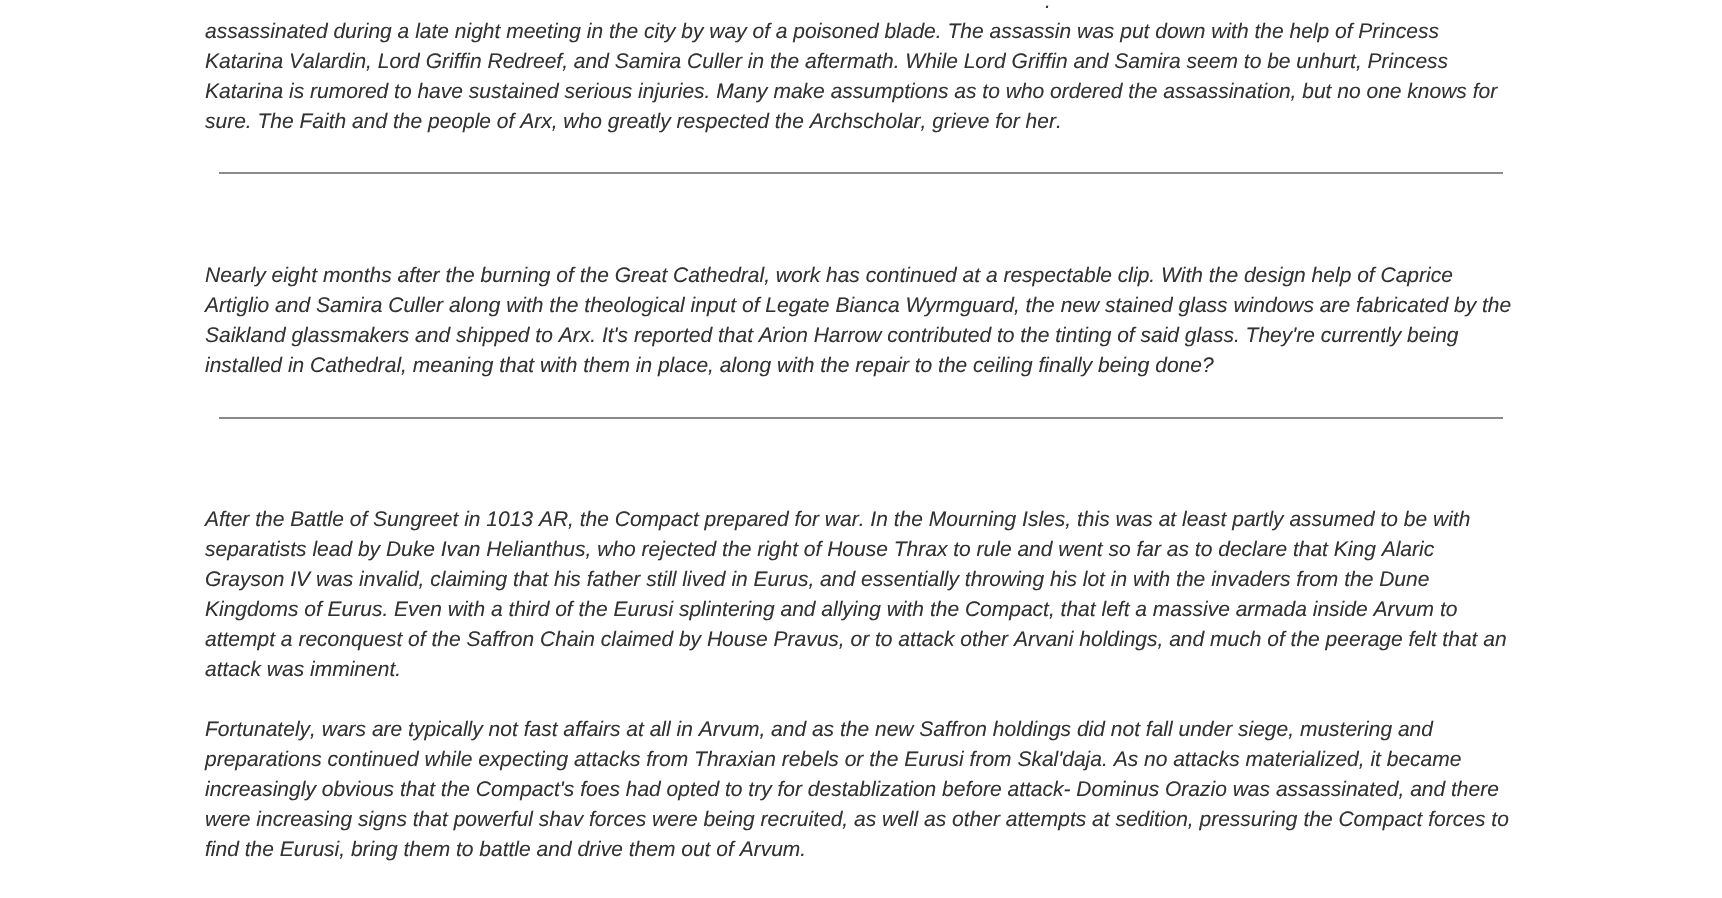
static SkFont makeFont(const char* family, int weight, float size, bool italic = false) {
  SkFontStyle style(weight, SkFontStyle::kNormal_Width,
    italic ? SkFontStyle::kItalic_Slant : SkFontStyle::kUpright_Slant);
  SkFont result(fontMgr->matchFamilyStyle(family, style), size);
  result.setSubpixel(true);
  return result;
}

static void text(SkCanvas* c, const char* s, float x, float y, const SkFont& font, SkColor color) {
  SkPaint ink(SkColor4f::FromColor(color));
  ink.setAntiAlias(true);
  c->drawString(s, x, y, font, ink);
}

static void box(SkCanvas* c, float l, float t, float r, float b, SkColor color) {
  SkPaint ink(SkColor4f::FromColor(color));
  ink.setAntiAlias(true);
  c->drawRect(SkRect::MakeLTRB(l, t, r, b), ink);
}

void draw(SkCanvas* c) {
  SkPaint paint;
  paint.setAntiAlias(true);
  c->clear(0xffffffff);
  SkFont face1 = makeFont("Liberation Sans", 400, 21, true);
  text(c, ".", 1045, 8, face1, 0xff333333);
  text(c, "assassinated during a late night meeting in the city by way of a poisoned blade. The assassin was put down with the help of Princess", 205, 38, face1, 0xff333333);
  text(c, "Katarina Valardin, Lord Griffin Redreef, and Samira Culler in the aftermath. While Lord Griffin and Samira seem to be unhurt, Princess", 205, 68, face1, 0xff333333);
  text(c, "Katarina is rumored to have sustained serious injuries. Many make assumptions as to who ordered the assassination, but no one knows for", 205, 98, face1, 0xff333333);
  text(c, "sure. The Faith and the people of Arx, who greatly respected the Archscholar, grieve for her.", 205, 128, face1, 0xff333333);
  box(c, 219, 172, 1503, 174, 0xff8c8b8b);
  text(c, "Nearly eight months after the burning of the Great Cathedral, work has continued at a respectable clip. With the design help of Caprice", 205, 282, face1, 0xff333333);
  text(c, "Artiglio and Samira Culler along with the theological input of Legate Bianca Wyrmguard, the new stained glass windows are fabricated by the", 205, 312, face1, 0xff333333);
  text(c, "Saikland glassmakers and shipped to Arx. It's reported that Arion Harrow contributed to the tinting of said glass. They're currently being", 205, 342, face1, 0xff333333);
  text(c, "installed in Cathedral, meaning that with them in place, along with the repair to the ceiling finally being done?", 205, 372, face1, 0xff333333);
  box(c, 219, 417, 1503, 419, 0xff8c8b8b);
  text(c, "After the Battle of Sungreet in 1013 AR, the Compact prepared for war. In the Mourning Isles, this was at least partly assumed to be with", 205, 526, face1, 0xff333333);
  text(c, "separatists lead by Duke Ivan Helianthus, who rejected the right of House Thrax to rule and went so far as to declare that King Alaric", 205, 556, face1, 0xff333333);
  text(c, "Grayson IV was invalid, claiming that his father still lived in Eurus, and essentially throwing his lot in with the invaders from the Dune", 205, 586, face1, 0xff333333);
  text(c, "Kingdoms of Eurus. Even with a third of the Eurusi splintering and allying with the Compact, that left a massive armada inside Arvum to", 205, 616, face1, 0xff333333);
  text(c, "attempt a reconquest of the Saffron Chain claimed by House Pravus, or to attack other Arvani holdings, and much of the peerage felt that an", 205, 646, face1, 0xff333333);
  text(c, "attack was imminent.", 205, 676, face1, 0xff333333);
  text(c, "Fortunately, wars are typically not fast affairs at all in Arvum, and as the new Saffron holdings did not fall under siege, mustering and", 205, 736, face1, 0xff333333);
  text(c, "preparations continued while expecting attacks from Thraxian rebels or the Eurusi from Skal'daja. As no attacks materialized, it became", 205, 766, face1, 0xff333333);
  text(c, "increasingly obvious that the Compact's foes had opted to try for destablization before attack- Dominus Orazio was assassinated, and there", 205, 796, face1, 0xff333333);
  text(c, "were increasing signs that powerful shav forces were being recruited, as well as other attempts at sedition, pressuring the Compact forces to", 205, 826, face1, 0xff333333);
  text(c, "find the Eurusi, bring them to battle and drive them out of Arvum.", 205, 856, face1, 0xff333333);
}
